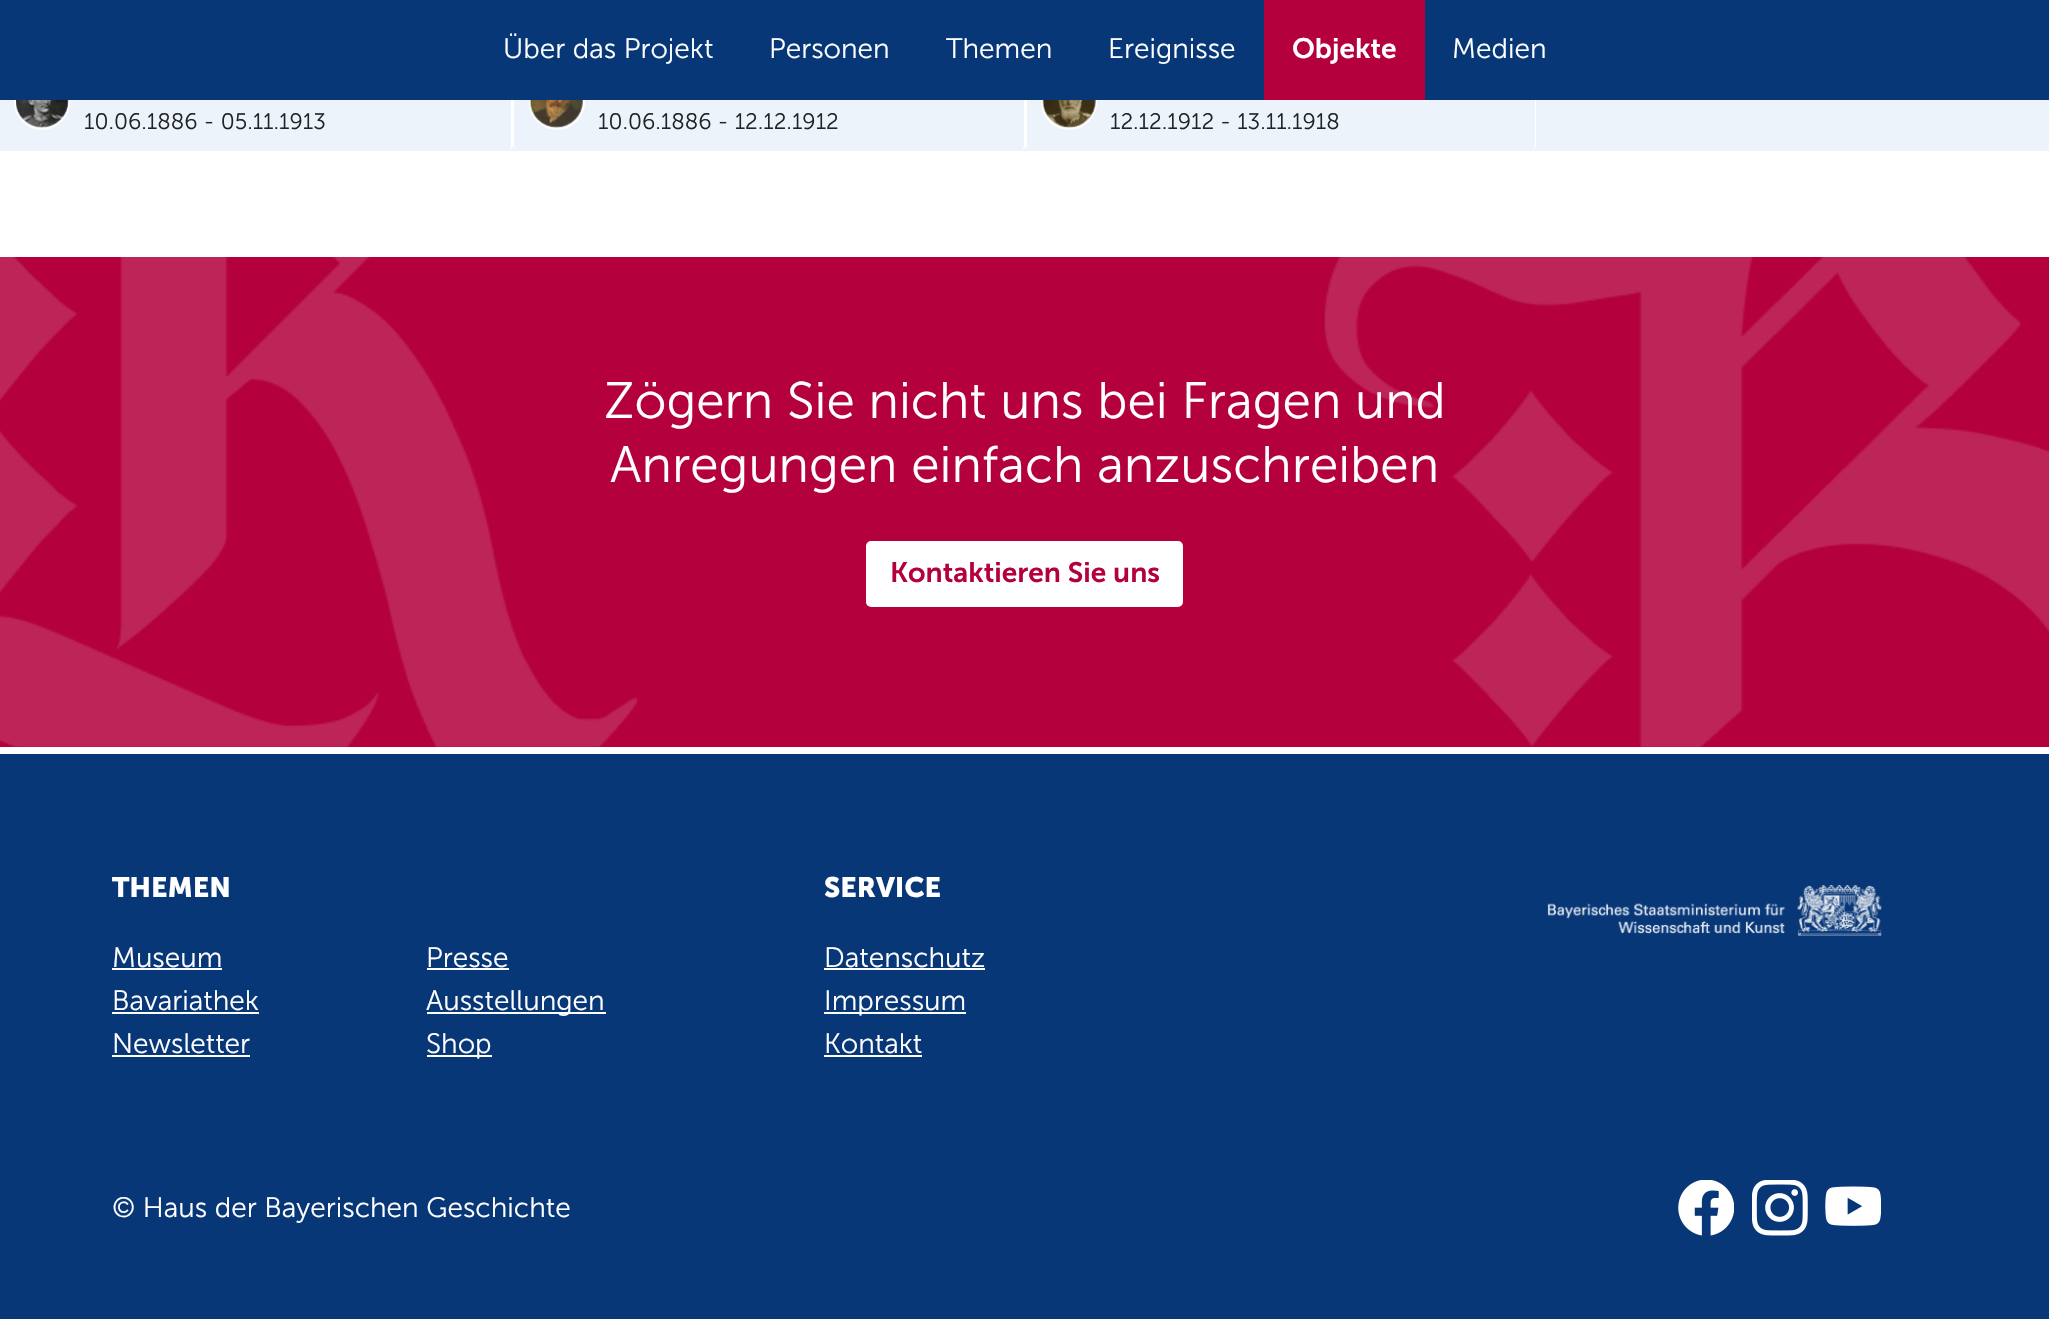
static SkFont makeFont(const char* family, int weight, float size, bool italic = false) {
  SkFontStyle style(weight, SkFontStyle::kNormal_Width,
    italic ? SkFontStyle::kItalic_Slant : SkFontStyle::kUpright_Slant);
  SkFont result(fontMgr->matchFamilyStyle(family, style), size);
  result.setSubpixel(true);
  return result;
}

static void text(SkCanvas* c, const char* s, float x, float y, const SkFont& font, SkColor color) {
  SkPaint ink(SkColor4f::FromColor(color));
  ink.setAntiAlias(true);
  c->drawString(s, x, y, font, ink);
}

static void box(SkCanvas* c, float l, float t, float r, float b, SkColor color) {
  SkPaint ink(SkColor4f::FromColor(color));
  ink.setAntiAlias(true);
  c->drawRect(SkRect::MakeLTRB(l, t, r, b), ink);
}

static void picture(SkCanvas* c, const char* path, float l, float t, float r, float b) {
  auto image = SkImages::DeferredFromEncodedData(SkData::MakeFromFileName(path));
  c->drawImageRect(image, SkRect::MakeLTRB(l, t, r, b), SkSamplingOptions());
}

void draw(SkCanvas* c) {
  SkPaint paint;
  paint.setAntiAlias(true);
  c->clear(0xffffffff);
  box(c, 0, 100, 2049, 151, 0xffedf3fa);
  paint.setColor(0xffffffff);
  c->drawPath(SkPathBuilder(SkPathFillType::kEvenOdd).moveTo(5, 51).lineTo(508, 51).cubicTo(510, 51, 513, 53, 513, 56).lineTo(513, 145).cubicTo(513, 148, 510, 150, 508, 150).lineTo(5, 150).cubicTo(2, 150, 0, 148, 0, 145).lineTo(0, 56).cubicTo(0, 53, 2, 51, 5, 51).close().moveTo(5, 52).lineTo(508, 52).cubicTo(509, 52, 511, 54, 511, 56).lineTo(511, 145).cubicTo(511, 148, 509, 150, 508, 150).lineTo(5, 150).cubicTo(2, 150, 0, 148, 0, 145).lineTo(0, 56).cubicTo(0, 54, 2, 52, 5, 52).close().detach(), paint);
  paint.setStyle(SkPaint::kStroke_Style);
  paint.setStrokeWidth(2);
  c->drawCircle(42, 102, 27, paint);
  paint.setStyle(SkPaint::kFill_Style);
  c->drawPath(SkPathBuilder(SkPathFillType::kEvenOdd).moveTo(518, 51).lineTo(1020, 51).cubicTo(1023, 51, 1026, 53, 1026, 56).lineTo(1026, 145).cubicTo(1026, 148, 1023, 150, 1020, 150).lineTo(518, 150).cubicTo(515, 150, 513, 148, 513, 145).lineTo(513, 56).cubicTo(513, 53, 515, 51, 518, 51).close().moveTo(518, 52).lineTo(1020, 52).cubicTo(1022, 52, 1024, 54, 1024, 56).lineTo(1024, 145).cubicTo(1024, 148, 1022, 150, 1020, 150).lineTo(518, 150).cubicTo(516, 150, 514, 148, 514, 145).lineTo(514, 56).cubicTo(514, 54, 516, 52, 518, 52).close().detach(), paint);
  paint.setStyle(SkPaint::kStroke_Style);
  c->drawCircle(557, 102, 27, paint);
  paint.setStyle(SkPaint::kFill_Style);
  c->drawPath(SkPathBuilder(SkPathFillType::kEvenOdd).moveTo(1031, 51).lineTo(1531, 51).cubicTo(1534, 51, 1536, 53, 1536, 56).lineTo(1536, 145).cubicTo(1536, 148, 1534, 150, 1531, 150).lineTo(1031, 150).cubicTo(1028, 150, 1026, 148, 1026, 145).lineTo(1026, 56).cubicTo(1026, 53, 1028, 51, 1031, 51).close().moveTo(1031, 52).lineTo(1531, 52).cubicTo(1533, 52, 1535, 54, 1535, 56).lineTo(1535, 145).cubicTo(1535, 148, 1533, 150, 1531, 150).lineTo(1031, 150).cubicTo(1029, 150, 1027, 148, 1027, 145).lineTo(1027, 56).cubicTo(1027, 54, 1029, 52, 1031, 52).close().detach(), paint);
  paint.setStyle(SkPaint::kStroke_Style);
  c->drawCircle(1069, 102, 27, paint);
  box(c, 0, 0, 2049, 100, 0xff083778);
  SkFont face1 = makeFont("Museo", 300, 28);
  text(c, "Über das Projekt", 503, 58, face1, 0xffffffff);
  text(c, "Personen", 769, 58, face1, 0xffffffff);
  text(c, "Themen", 946, 58, face1, 0xffffffff);
  text(c, "Ereignisse", 1108, 58, face1, 0xffffffff);
  box(c, 1264, 0, 1425, 100, 0xffb4003c);
  SkFont face2 = makeFont("Museo Sans", 600, 28);
  text(c, "Objekte", 1292, 58, face2, 0xffffffff);
  text(c, "Medien", 1452, 58, face1, 0xffffffff);
  picture(c, "img_01.png", 16, 100, 69, 128);
  SkFont face3 = makeFont("Museo", 300, 22.4f);
  text(c, "10.06.1886 - 05.11.1913", 84, 129, face3, 0xff212427);
  picture(c, "img_02.png", 529, 100, 583, 128);
  text(c, "10.06.1886 - 12.12.1912", 598, 129, face3, 0xff212427);
  picture(c, "img_03.png", 1042, 100, 1096, 128);
  text(c, "12.12.1912 - 13.11.1918", 1110, 129, face3, 0xff212427);
  box(c, 0, 257, 2049, 747, 0xffb4003c);
  SkFont face4 = makeFont("Museo", 300, 51.25f);
  text(c, "Zögern Sie nicht uns bei Fragen und", 604, 418, face4, 0xffffffff);
  text(c, "Anregungen einfach anzuschreiben", 610, 482, face4, 0xffffffff);
  picture(c, "img_04.png", 0, 257, 637, 747);
  paint.setStyle(SkPaint::kFill_Style);
  c->drawRoundRect(SkRect::MakeLTRB(867, 542, 1182, 606), 4, 4, paint);
  paint.setStyle(SkPaint::kStroke_Style);
  c->drawRoundRect(SkRect::MakeLTRB(867, 542, 1182, 606), 4, 4, paint);
  text(c, "Kontaktieren Sie uns", 890, 582, face2, 0xffb4003c);
  picture(c, "img_05.png", 1324, 257, 2049, 747);
  box(c, 0, 754, 2049, 1319, 0xff083778);
  SkFont face5 = makeFont("Museo", 700, 28);
  text(c, "THEMEN", 112, 897, face5, 0xffffffff);
  text(c, "Museum", 112, 967, face1, 0xffffffff);
  box(c, 112, 968, 222, 970, 0xffffffff);
  text(c, "Presse", 426, 967, face1, 0xffffffff);
  box(c, 427, 968, 509, 970, 0xffffffff);
  text(c, "Bavariathek", 112, 1010, face1, 0xffffffff);
  box(c, 112, 1012, 259, 1014, 0xffffffff);
  box(c, 427, 1012, 606, 1014, 0xffffffff);
  text(c, "Ausstellungen", 426, 1010, face1, 0xffffffff);
  text(c, "Newsletter", 112, 1053, face1, 0xffffffff);
  box(c, 112, 1055, 250, 1057, 0xffffffff);
  box(c, 427, 1055, 492, 1057, 0xffffffff);
  text(c, "Shop", 426, 1053, face1, 0xffffffff);
  text(c, "SERVICE", 824, 897, face5, 0xffffffff);
  text(c, "Datenschutz", 824, 967, face1, 0xffffffff);
  box(c, 824, 968, 985, 970, 0xffffffff);
  box(c, 824, 1012, 966, 1014, 0xffffffff);
  text(c, "Impressum", 824, 1010, face1, 0xffffffff);
  text(c, "Kontakt", 824, 1053, face1, 0xffffffff);
  box(c, 824, 1055, 922, 1057, 0xffffffff);
  picture(c, "img_06.png", 1547, 885, 1882, 936);
  text(c, "© Haus der Bayerischen Geschichte", 112, 1217, face1, 0xffffffff);
  picture(c, "img_07.png", 1678, 1180, 1734, 1236);
  picture(c, "img_08.png", 1752, 1180, 1808, 1236);
  picture(c, "img_09.png", 1825, 1186, 1881, 1226);
}
